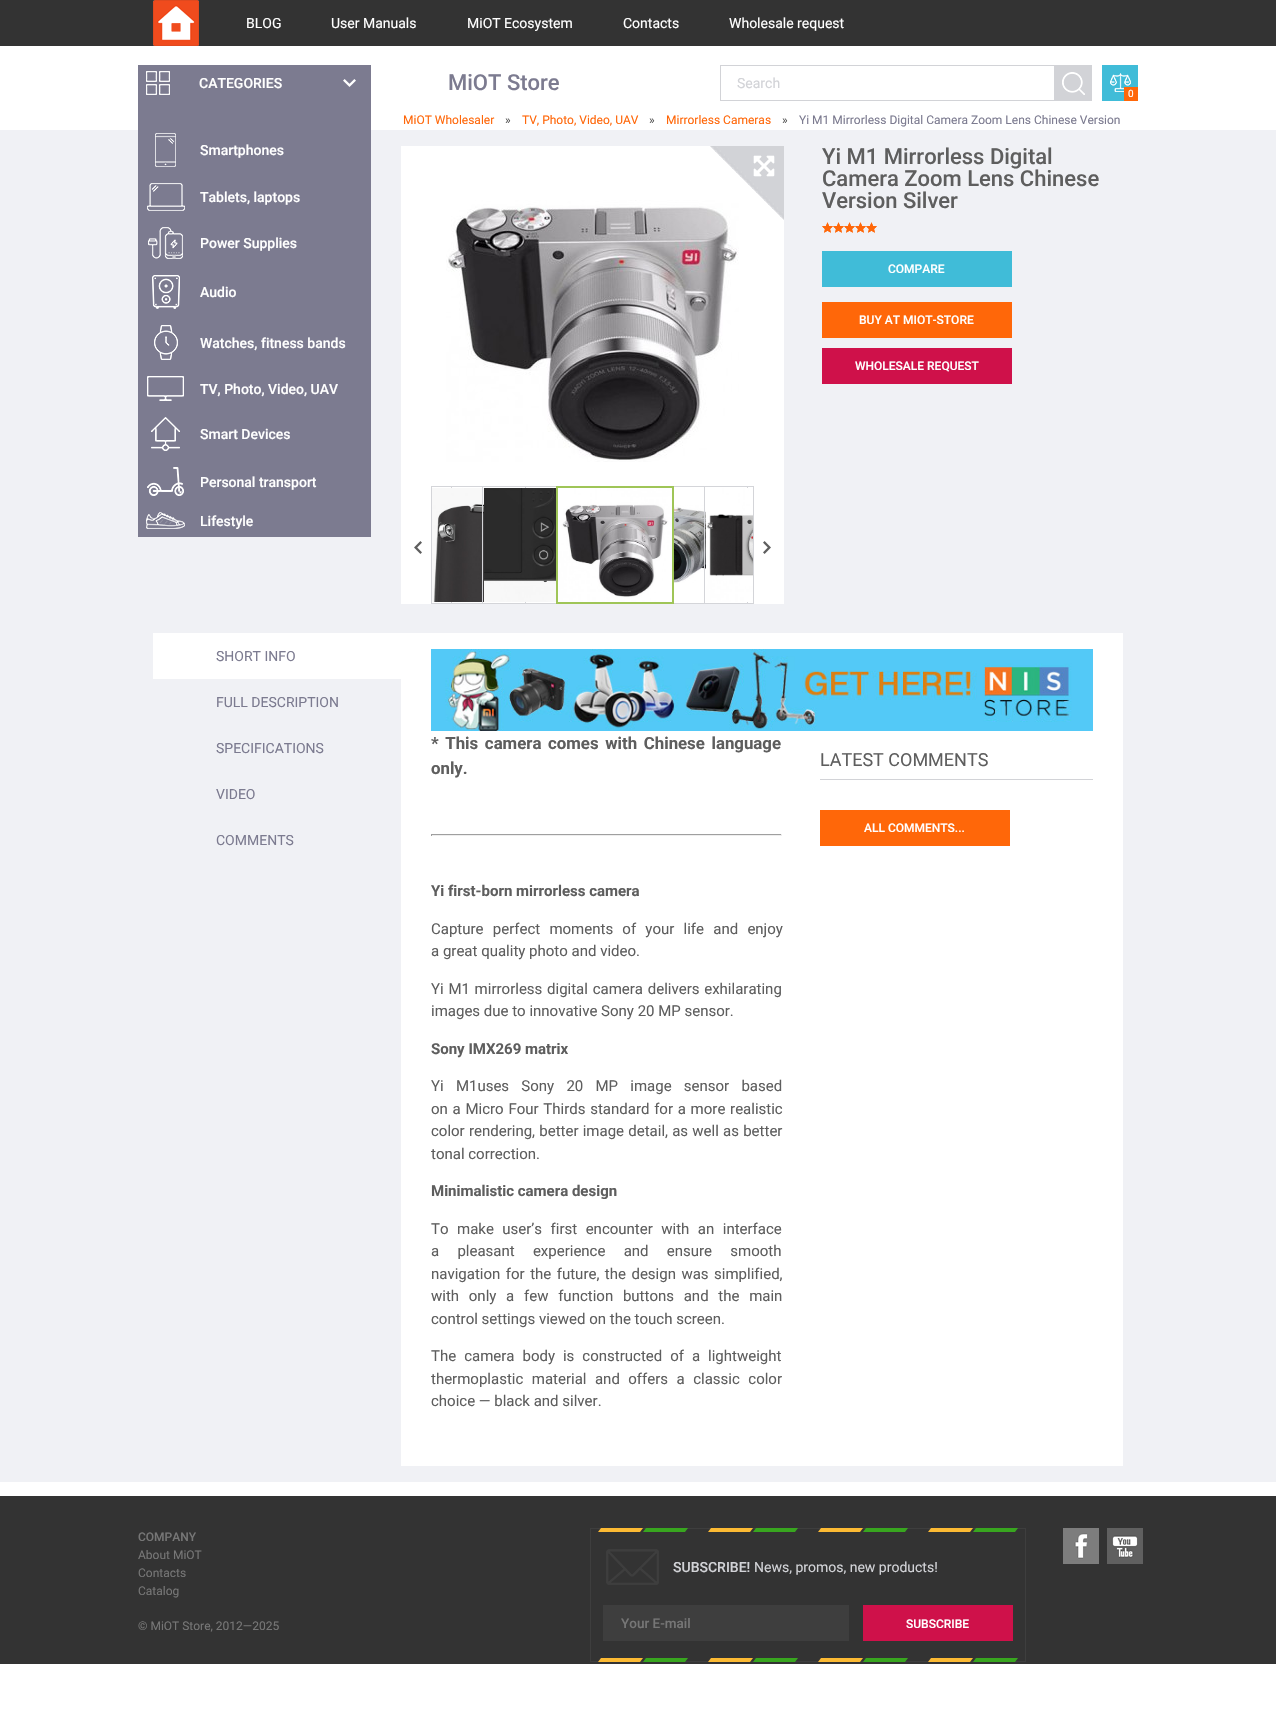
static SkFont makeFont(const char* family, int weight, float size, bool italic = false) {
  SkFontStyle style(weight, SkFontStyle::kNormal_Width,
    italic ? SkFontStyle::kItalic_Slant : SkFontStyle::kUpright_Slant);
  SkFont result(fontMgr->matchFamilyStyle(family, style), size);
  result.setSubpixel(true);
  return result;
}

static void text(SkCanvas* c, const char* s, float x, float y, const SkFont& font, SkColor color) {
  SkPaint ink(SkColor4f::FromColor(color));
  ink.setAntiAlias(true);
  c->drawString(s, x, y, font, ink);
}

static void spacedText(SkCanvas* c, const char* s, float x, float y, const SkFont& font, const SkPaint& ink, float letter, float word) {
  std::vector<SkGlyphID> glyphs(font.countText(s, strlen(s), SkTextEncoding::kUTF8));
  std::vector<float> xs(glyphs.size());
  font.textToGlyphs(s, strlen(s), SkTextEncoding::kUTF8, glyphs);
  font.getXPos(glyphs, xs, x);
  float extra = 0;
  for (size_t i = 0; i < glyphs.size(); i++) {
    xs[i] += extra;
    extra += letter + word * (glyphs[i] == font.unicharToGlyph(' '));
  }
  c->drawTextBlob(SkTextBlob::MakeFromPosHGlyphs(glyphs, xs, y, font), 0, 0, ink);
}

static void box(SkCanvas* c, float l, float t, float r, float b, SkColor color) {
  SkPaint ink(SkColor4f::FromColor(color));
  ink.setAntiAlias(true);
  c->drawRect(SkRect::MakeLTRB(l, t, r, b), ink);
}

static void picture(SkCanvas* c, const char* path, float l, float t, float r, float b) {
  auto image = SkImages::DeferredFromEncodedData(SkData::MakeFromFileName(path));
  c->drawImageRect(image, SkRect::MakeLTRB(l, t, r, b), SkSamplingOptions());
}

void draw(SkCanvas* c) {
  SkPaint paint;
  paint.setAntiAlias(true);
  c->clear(0xffffffff);
  box(c, 0, 0, 1276, 46, 0xff333333);
  picture(c, "img_01.png", 153, 0, 199, 46);
  SkFont face1 = makeFont("Roboto", 400, 14);
  text(c, "BLOG", 246, 28, face1, 0xffffffff);
  text(c, "User Manuals", 331, 28, face1, 0xffffffff);
  text(c, "MiOT Ecosystem", 467, 28, face1, 0xffffffff);
  text(c, "Contacts", 623, 28, face1, 0xffffffff);
  text(c, "Wholesale request", 729, 28, face1, 0xffffffff);
  box(c, 0, 130, 1276, 1482, 0xfff0f1f5);
  box(c, 401, 146, 784, 604, 0xffffffff);
  box(c, 431, 486, 432, 604, 0xffd4d5d9);
  c->save();
  c->clipRect(SkRect::MakeLTRB(432, 486, 753, 604));
  paint.setStyle(SkPaint::kStroke_Style);
  paint.setStrokeWidth(1);
  paint.setColor(0xffd4d5d9);
  c->drawRect(SkRect::MakeLTRB(334.5f, 486.5f, 451.5f, 603.5f), paint);
  c->restore();
  box(c, 138, 65, 371, 537, 0xff7c7b90);
  picture(c, "img_02.png", 146, 71, 170, 95);
  SkFont face2 = makeFont("Roboto", 500, 14);
  text(c, "CATEGORIES", 199, 88, face2, 0xffffffff);
  picture(c, "img_03.png", 343, 79, 356, 87);
  picture(c, "img_04.png", 155, 133, 176, 167);
  text(c, "Smartphones", 200, 155, face2, 0xffffffff);
  picture(c, "img_05.png", 147, 183, 185, 211);
  text(c, "Tablets, laptops", 200, 202, face2, 0xffffffff);
  picture(c, "img_06.png", 148, 227, 183, 259);
  text(c, "Power Supplies", 200, 248, face2, 0xffffffff);
  picture(c, "img_07.png", 152, 275, 180, 309);
  text(c, "Audio", 200, 297, face2, 0xffffffff);
  picture(c, "img_08.png", 154, 325, 178, 360);
  text(c, "Watches, fitness bands", 200, 348, face2, 0xffffffff);
  picture(c, "img_09.png", 147, 376, 184, 401);
  text(c, "TV, Photo, Video, UAV", 200, 394, face2, 0xffffffff);
  picture(c, "img_10.png", 151, 417, 180, 451);
  text(c, "Smart Devices", 200, 439, face2, 0xffffffff);
  picture(c, "img_11.png", 147, 467, 184, 496);
  text(c, "Рersonal transport", 200, 487, face2, 0xffffffff);
  picture(c, "img_12.png", 146, 512, 185, 529);
  text(c, "Lifestyle", 200, 526, face2, 0xffffffff);
  SkFont face3 = makeFont("Roboto", 500, 22);
  text(c, "MiOT Store", 448, 90, face3, 0xff7c7b90);
  paint.setColor(0xffd2d3d7);
  c->drawRect(SkRect::MakeLTRB(720.5f, 65.5f, 1091.5f, 100.5f), paint);
  text(c, "Search", 737, 88, face1, 0xffd2d3d7);
  box(c, 1054, 66, 1091, 100, 0xffd2d3d7);
  picture(c, "img_13.png", 1062, 72, 1085, 95);
  box(c, 1102, 65, 1138, 101, 0xff40bcd8);
  picture(c, "img_14.png", 1110, 73, 1131, 92);
  box(c, 1124, 87, 1138, 101, 0xffff6709);
  SkFont face4 = makeFont("Roboto", 400, 10);
  text(c, "0", 1128, 97, face4, 0xffffffff);
  SkFont face5 = makeFont("Roboto", 400, 12);
  text(c, "MiOT Wholesaler", 403, 124, face5, 0xffff6709);
  text(c, "»", 505, 124, face5, 0xff555555);
  text(c, "TV, Photo, Video, UAV", 522, 124, face5, 0xffff6709);
  text(c, "»", 649, 124, face5, 0xff555555);
  text(c, "Mirrorless Cameras", 666, 124, face5, 0xffff6709);
  text(c, "»", 782, 124, face5, 0xff555555);
  text(c, "Yi M1 Mirrorless Digital Camera Zoom Lens Chinese Version", 799, 124, face5, 0xff7c7b90);
  picture(c, "img_16.png", 446, 200, 739, 462);
  picture(c, "img_15.png", 710, 146, 784, 220);
  box(c, 753, 486, 754, 604, 0xffd4d5d9);
  c->save();
  c->clipRect(SkRect::MakeLTRB(432, 486, 753, 604));
  paint.setColor(0xffd4d5d9);
  c->drawRect(SkRect::MakeLTRB(408.5f, 486.5f, 525.5f, 603.5f), paint);
  c->restore();
  picture(c, "img_17.png", 432, 488, 484, 602);
  c->drawRect(SkRect::MakeLTRB(482.5f, 486.5f, 599.5f, 603.5f), paint);
  picture(c, "img_18.png", 484, 488, 556, 602);
  c->drawRect(SkRect::MakeLTRB(630.5f, 486.5f, 747.5f, 603.5f), paint);
  paint.setStrokeWidth(2);
  paint.setColor(0xff9fc557);
  c->drawRect(SkRect::MakeLTRB(557, 487, 673, 603), paint);
  picture(c, "img_19.png", 558, 488, 672, 602);
  picture(c, "img_20.png", 674, 505, 706, 583);
  c->save();
  c->clipRect(SkRect::MakeLTRB(432, 486, 753, 604));
  paint.setStrokeWidth(1);
  paint.setColor(0xffd4d5d9);
  c->drawRect(SkRect::MakeLTRB(704.5f, 486.5f, 821.5f, 603.5f), paint);
  c->restore();
  picture(c, "img_21.png", 706, 488, 753, 602);
  picture(c, "img_22.png", 414, 541, 422, 554);
  picture(c, "img_23.png", 763, 541, 771, 554);
  text(c, "Yi M1 Mirrorless Digital", 822, 164, face3, 0xff5e5e5e);
  text(c, "Camera Zoom Lens Chinese", 822, 186, face3, 0xff5e5e5e);
  text(c, "Version Silver", 822, 208, face3, 0xff5e5e5e);
  picture(c, "img_24.png", 822, 222, 877, 233);
  picture(c, "img_25.png", 822, 222, 877, 233);
  box(c, 822, 251, 1012, 287, 0xff40bcd8);
  SkFont face6 = makeFont("Roboto", 500, 12);
  text(c, "COMPARE", 888, 273, face6, 0xffffffff);
  box(c, 822, 302, 1012, 338, 0xffff6709);
  text(c, "BUY AT MIOT-STORE", 859, 324, face6, 0xffffffff);
  box(c, 822, 348, 1012, 384, 0xffcf114a);
  text(c, "WHOLESALE REQUEST", 855, 370, face6, 0xffffffff);
  box(c, 153, 633, 401, 679, 0xffffffff);
  text(c, "SHORT INFO", 216, 661, face1, 0xff7c7b90);
  box(c, 401, 633, 1123, 1466, 0xffffffff);
  picture(c, "img_26.png", 431, 649, 1093, 731);
  SkFont face7 = makeFont("Roboto", 700, 16.8f);
  paint.setStyle(SkPaint::kFill_Style);
  paint.setColor(0xff5e5e5e);
  spacedText(c, "* This camera comes with Chinese language", 431, 749, face7, paint, 0, 2.5f);
  text(c, "only.", 431, 774, face7, 0xff5e5e5e);
  box(c, 431, 834, 782, 835, 0xff9f9f9f);
  box(c, 781, 834, 782, 836, 0xffeeeeee);
  box(c, 431, 835, 782, 836, 0xffeeeeee);
  box(c, 431, 834, 432, 836, 0xff9f9f9f);
  SkFont face8 = makeFont("Roboto", 700, 15);
  text(c, "Yi first-born mirrorless camera", 431, 896, face8, 0xff5e5e5e);
  SkFont face9 = makeFont("Roboto", 400, 15);
  spacedText(c, "Capture perfect moments of your life and enjoy", 431, 934, face9, paint, 0, 5.5f);
  text(c, "a great quality photo and video.", 431, 956, face9, 0xff5e5e5e);
  spacedText(c, "Yi M1 mirrorless digital camera delivers exhilarating", 431, 994, face9, paint, 0, 1);
  text(c, "images due to innovative Sony 20 MP sensor.", 431, 1016, face9, 0xff5e5e5e);
  text(c, "Sony IMX269 matrix", 431, 1054, face8, 0xff5e5e5e);
  spacedText(c, "Yi M1uses Sony 20 MP image sensor based", 431, 1091, face9, paint, 0, 8.5f);
  spacedText(c, "on a Micro Four Thirds standard for a more realistic", 431, 1114, face9, paint, 0, 1);
  spacedText(c, "color rendering, better image detail, as well as better", 431, 1136, face9, paint, 0, 0.5f);
  text(c, "tonal correction.", 431, 1159, face9, 0xff5e5e5e);
  text(c, "Minimalistic camera design", 431, 1196, face8, 0xff5e5e5e);
  spacedText(c, "To make user’s first encounter with an interface", 431, 1234, face9, paint, 0, 4.75f);
  spacedText(c, "a pleasant experience and ensure smooth", 431, 1256, face9, paint, 0, 14.5f);
  spacedText(c, "navigation for the future, the design was simplified,", 431, 1279, face9, paint, 0, 1.75f);
  spacedText(c, "with only a few function buttons and the main", 431, 1301, face9, paint, 0, 6);
  text(c, "control settings viewed on the touch screen.", 431, 1324, face9, 0xff5e5e5e);
  spacedText(c, "The camera body is constructed of a lightweight", 431, 1361, face9, paint, 0, 4.25f);
  spacedText(c, "thermoplastic material and offers a classic color", 431, 1384, face9, paint, 0, 4.75f);
  text(c, "choice — black and silver.", 431, 1406, face9, 0xff5e5e5e);
  box(c, 820, 779, 1093, 780, 0xffd2d3d7);
  SkFont face10 = makeFont("Roboto", 400, 18);
  text(c, "LATEST COMMENTS", 820, 766, face10, 0xff5e5e5e);
  box(c, 820, 810, 1010, 846, 0xffff6709);
  text(c, "ALL COMMENTS...", 864, 832, face6, 0xffffffff);
  text(c, "FULL DESCRIPTION", 216, 707, face1, 0xff7c7b90);
  text(c, "SPECIFICATIONS", 216, 753, face1, 0xff7c7b90);
  text(c, "VIDEO", 216, 799, face1, 0xff7c7b90);
  text(c, "COMMENTS", 216, 845, face1, 0xff7c7b90);
  box(c, 0, 1496, 1276, 1664, 0xff333333);
  text(c, "СOMPANY", 138, 1541, face6, 0xff767676);
  text(c, "About MiOT", 138, 1559, face5, 0xff767676);
  text(c, "Contacts", 138, 1577, face5, 0xff767676);
  text(c, "Catalog", 138, 1595, face5, 0xff767676);
  paint.setStyle(SkPaint::kStroke_Style);
  paint.setColor(0xff3e3e3e);
  c->drawRect(SkRect::MakeLTRB(590.5f, 1528.5f, 1025.5f, 1661.5f), paint);
  picture(c, "img_27.png", 598, 1528, 1018, 1532);
  picture(c, "img_28.png", 606, 1549, 659, 1585);
  text(c, "SUBSCRIBE!", 673, 1572, face2, 0xffd2d3d7);
  text(c, "News, promos, new products!", 754, 1572, face1, 0xffd2d3d7);
  box(c, 603, 1605, 849, 1641, 0xff3e3e3e);
  SkFont face11 = makeFont("Roboto", 500, 13.5f);
  text(c, "Your E-mail", 621, 1628, face11, 0xff767676);
  box(c, 863, 1605, 1013, 1641, 0xffcf114a);
  text(c, "SUBSCRIBE", 906, 1628, face6, 0xffffffff);
  picture(c, "img_29.png", 598, 1658, 1018, 1662);
  picture(c, "img_30.png", 1063, 1528, 1099, 1564);
  picture(c, "img_31.png", 1107, 1528, 1143, 1564);
  text(c, "© MiOT Store, 2012—2025", 138, 1630, face5, 0xff767676);
}
